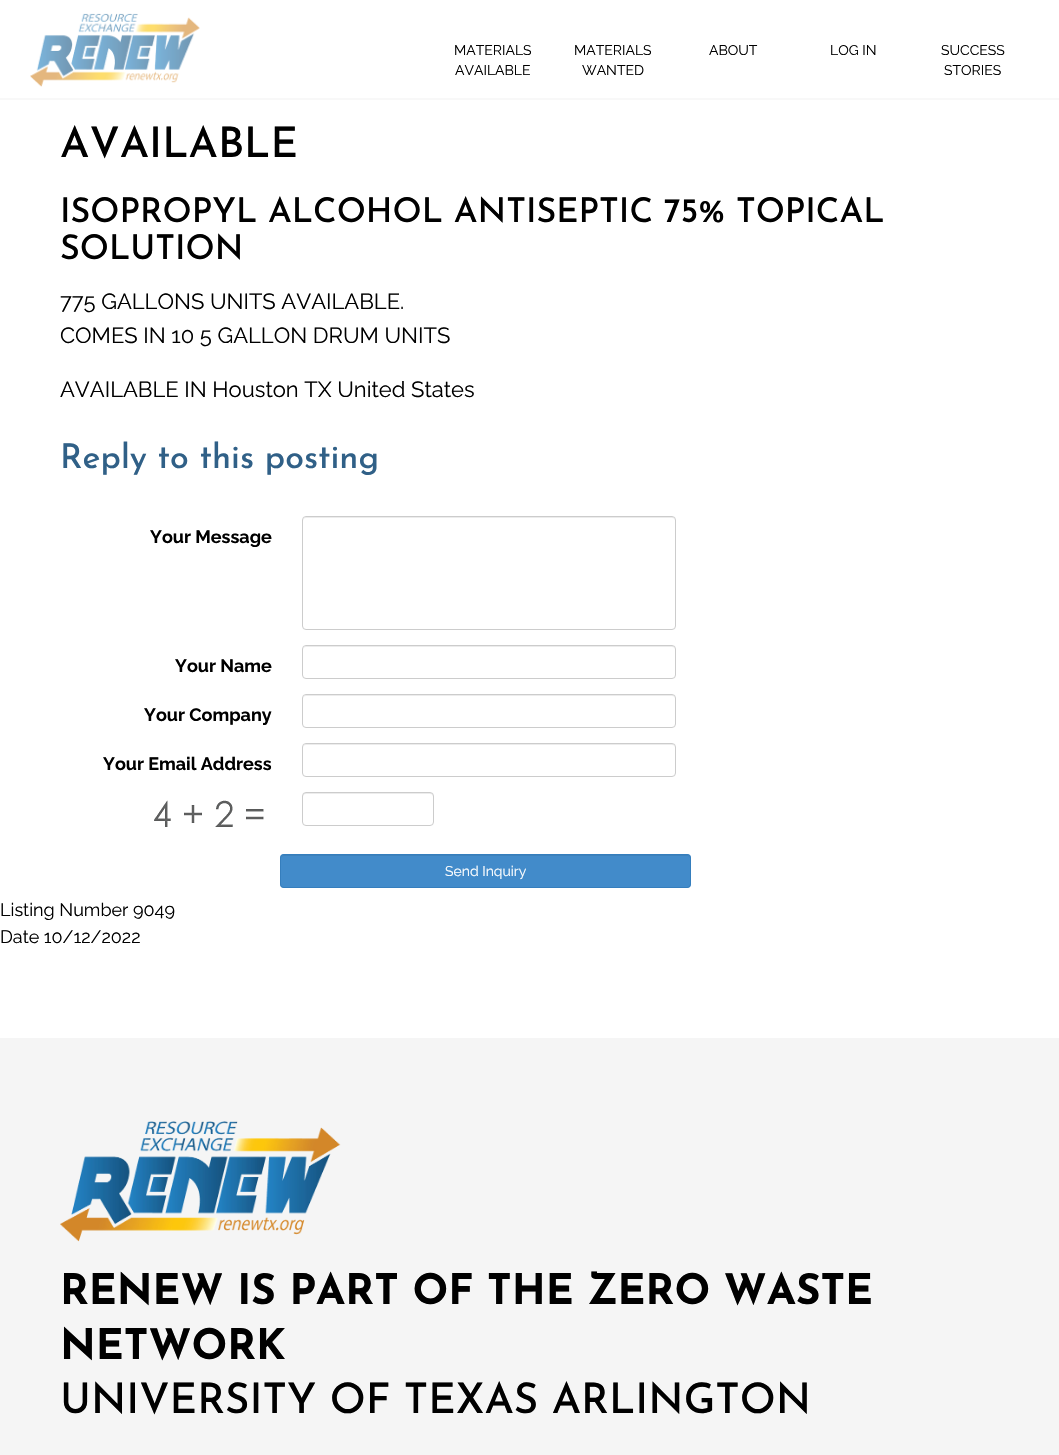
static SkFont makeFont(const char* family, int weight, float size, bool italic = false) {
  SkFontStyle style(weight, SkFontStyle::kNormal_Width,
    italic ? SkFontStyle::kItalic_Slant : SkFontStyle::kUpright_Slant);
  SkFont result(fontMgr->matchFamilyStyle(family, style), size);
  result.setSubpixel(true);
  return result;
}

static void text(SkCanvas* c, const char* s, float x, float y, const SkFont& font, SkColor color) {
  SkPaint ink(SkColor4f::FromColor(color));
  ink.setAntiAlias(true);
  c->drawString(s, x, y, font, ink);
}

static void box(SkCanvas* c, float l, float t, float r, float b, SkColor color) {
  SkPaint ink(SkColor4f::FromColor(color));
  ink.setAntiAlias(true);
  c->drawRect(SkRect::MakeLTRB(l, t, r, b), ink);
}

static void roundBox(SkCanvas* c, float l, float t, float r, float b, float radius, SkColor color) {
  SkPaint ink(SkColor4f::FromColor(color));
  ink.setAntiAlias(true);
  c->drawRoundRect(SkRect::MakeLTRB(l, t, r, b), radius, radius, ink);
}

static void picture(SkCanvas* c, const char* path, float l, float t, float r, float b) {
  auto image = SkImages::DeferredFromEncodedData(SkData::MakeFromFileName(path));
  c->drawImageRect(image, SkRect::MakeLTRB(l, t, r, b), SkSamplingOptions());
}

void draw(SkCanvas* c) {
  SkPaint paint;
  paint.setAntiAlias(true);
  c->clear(0xffffffff);
  box(c, 0, 98, 1059, 100, 0xfff8f8f8);
  picture(c, "img_01.png", 30, 13, 200, 87);
  SkFont face1 = makeFont("Raleway", 400, 14);
  text(c, "MATERIALS", 454, 55, face1, 0xff000000);
  text(c, "AVAILABLE", 455, 75, face1, 0xff000000);
  text(c, "MATERIALS", 574, 55, face1, 0xff000000);
  text(c, "WANTED", 582, 75, face1, 0xff000000);
  text(c, "ABOUT", 709, 55, face1, 0xff000000);
  text(c, "LOG IN", 830, 55, face1, 0xff000000);
  text(c, "SUCCESS", 941, 55, face1, 0xff000000);
  text(c, "STORIES", 944, 75, face1, 0xff000000);
  SkFont face2 = makeFont("Josefin Sans", 500, 42);
  text(c, "AVAILABLE", 60, 157, face2, 0xff000000);
  SkFont face3 = makeFont("Josefin Sans", 500, 34);
  text(c, "ISOPROPYL ALCOHOL ANTISEPTIC 75% TOPICAL", 60, 222, face3, 0xff000000);
  text(c, "SOLUTION", 60, 259, face3, 0xff000000);
  SkFont face4 = makeFont("Raleway", 400, 22);
  text(c, "775 GALLONS UNITS AVAILABLE.", 60, 309, face4, 0xff000000);
  text(c, "COMES IN 10 5 GALLON DRUM UNITS", 60, 343, face4, 0xff000000);
  text(c, "AVAILABLE IN Houston TX United States", 60, 397, face4, 0xff000000);
  text(c, "Reply to this posting", 60, 468, face3, 0xff306087);
  SkFont face5 = makeFont("Raleway", 700, 18);
  text(c, "Your Message", 150, 543, face5, 0xff000000);
  paint.setColor(0xffececec);
  c->drawPath(SkPathBuilder().moveTo(306, 518).lineTo(672, 518).cubicTo(674, 518, 675, 519, 675, 521).cubicTo(675, 519, 674, 517, 672, 517).lineTo(306, 517).lineTo(304, 518).lineTo(303, 521).cubicTo(303, 519, 304, 518, 306, 518).close().detach(), paint);
  paint.setStyle(SkPaint::kStroke_Style);
  paint.setStrokeWidth(1);
  paint.setColor(0xffcccccc);
  c->drawRoundRect(SkRect::MakeLTRB(302.5f, 516.5f, 675.5f, 629.5f), 3.5f, 3.5f, paint);
  text(c, "Your Name", 175, 672, face5, 0xff000000);
  paint.setStyle(SkPaint::kFill_Style);
  paint.setColor(0xffececec);
  c->drawPath(SkPathBuilder().moveTo(306, 647).lineTo(672, 647).cubicTo(674, 647, 675, 648, 675, 650).cubicTo(675, 648, 674, 646, 672, 646).lineTo(306, 646).lineTo(304, 647).lineTo(303, 650).cubicTo(303, 648, 304, 647, 306, 647).close().detach(), paint);
  paint.setStyle(SkPaint::kStroke_Style);
  paint.setColor(0xffcccccc);
  c->drawRoundRect(SkRect::MakeLTRB(302.5f, 645.5f, 675.5f, 678.5f), 3.5f, 3.5f, paint);
  text(c, "Your Company", 144, 721, face5, 0xff000000);
  paint.setStyle(SkPaint::kFill_Style);
  paint.setColor(0xffececec);
  c->drawPath(SkPathBuilder().moveTo(306, 696).lineTo(672, 696).cubicTo(674, 696, 675, 697, 675, 699).cubicTo(675, 697, 674, 695, 672, 695).lineTo(306, 695).lineTo(304, 696).lineTo(303, 699).cubicTo(303, 697, 304, 696, 306, 696).close().detach(), paint);
  paint.setStyle(SkPaint::kStroke_Style);
  paint.setColor(0xffcccccc);
  c->drawRoundRect(SkRect::MakeLTRB(302.5f, 694.5f, 675.5f, 727.5f), 3.5f, 3.5f, paint);
  text(c, "Your Email Address", 103, 770, face5, 0xff000000);
  paint.setStyle(SkPaint::kFill_Style);
  paint.setColor(0xffececec);
  c->drawPath(SkPathBuilder().moveTo(306, 745).lineTo(672, 745).cubicTo(674, 745, 675, 746, 675, 748).cubicTo(675, 746, 674, 744, 672, 744).lineTo(306, 744).lineTo(304, 745).lineTo(303, 748).cubicTo(303, 746, 304, 745, 306, 745).close().detach(), paint);
  paint.setStyle(SkPaint::kStroke_Style);
  paint.setColor(0xffcccccc);
  c->drawRoundRect(SkRect::MakeLTRB(302.5f, 743.5f, 675.5f, 776.5f), 3.5f, 3.5f, paint);
  picture(c, "img_02.png", 154, 800, 264, 827);
  paint.setStyle(SkPaint::kFill_Style);
  paint.setColor(0xffececec);
  c->drawPath(SkPathBuilder().moveTo(306, 794).lineTo(430, 794).cubicTo(432, 794, 433, 795, 433, 797).cubicTo(433, 795, 433, 793, 431, 793).lineTo(305, 793).cubicTo(303, 793, 303, 795, 303, 797).cubicTo(303, 795, 304, 794, 306, 794).close().detach(), paint);
  paint.setStyle(SkPaint::kStroke_Style);
  paint.setColor(0xffcccccc);
  c->drawRoundRect(SkRect::MakeLTRB(302.5f, 792.5f, 433.5f, 825.5f), 3.5f, 3.5f, paint);
  roundBox(c, 280, 854, 691, 888, 4, 0xff428bca);
  paint.setStyle(SkPaint::kFill_Style);
  paint.setColor(0xff3d81bb);
  c->drawPath(SkPathBuilder().moveTo(284, 856).lineTo(687, 856).cubicTo(689, 856, 690, 857, 690, 859).cubicTo(690, 857, 689, 855, 687, 855).lineTo(284, 855).cubicTo(282, 855, 281, 857, 281, 859).cubicTo(281, 857, 282, 856, 284, 856).close().detach(), paint);
  paint.setStyle(SkPaint::kStroke_Style);
  paint.setColor(0xff357ebd);
  c->drawRoundRect(SkRect::MakeLTRB(280.5f, 854.5f, 690.5f, 887.5f), 3.5f, 3.5f, paint);
  text(c, "Send Inquiry", 445, 876, face1, 0xffffffff);
  SkFont face6 = makeFont("Raleway", 400, 18);
  text(c, "Listing Number 9049", 0, 916, face6, 0xff000000);
  text(c, "Date 10/12/2022", 0, 943, face6, 0xff000000);
  box(c, 0, 1038, 1059, 1455, 0xfff5f5f5);
  picture(c, "img_03.png", 60, 1121, 341, 1242);
  SkFont face7 = makeFont("Josefin Sans", 700, 42);
  text(c, "RENEW IS PART OF THE ZERO WASTE", 60, 1304, face7, 0xff000000);
  text(c, "NETWORK", 60, 1359, face7, 0xff000000);
  text(c, "UNIVERSITY OF TEXAS ARLINGTON", 60, 1413, face2, 0xff000000);
}
